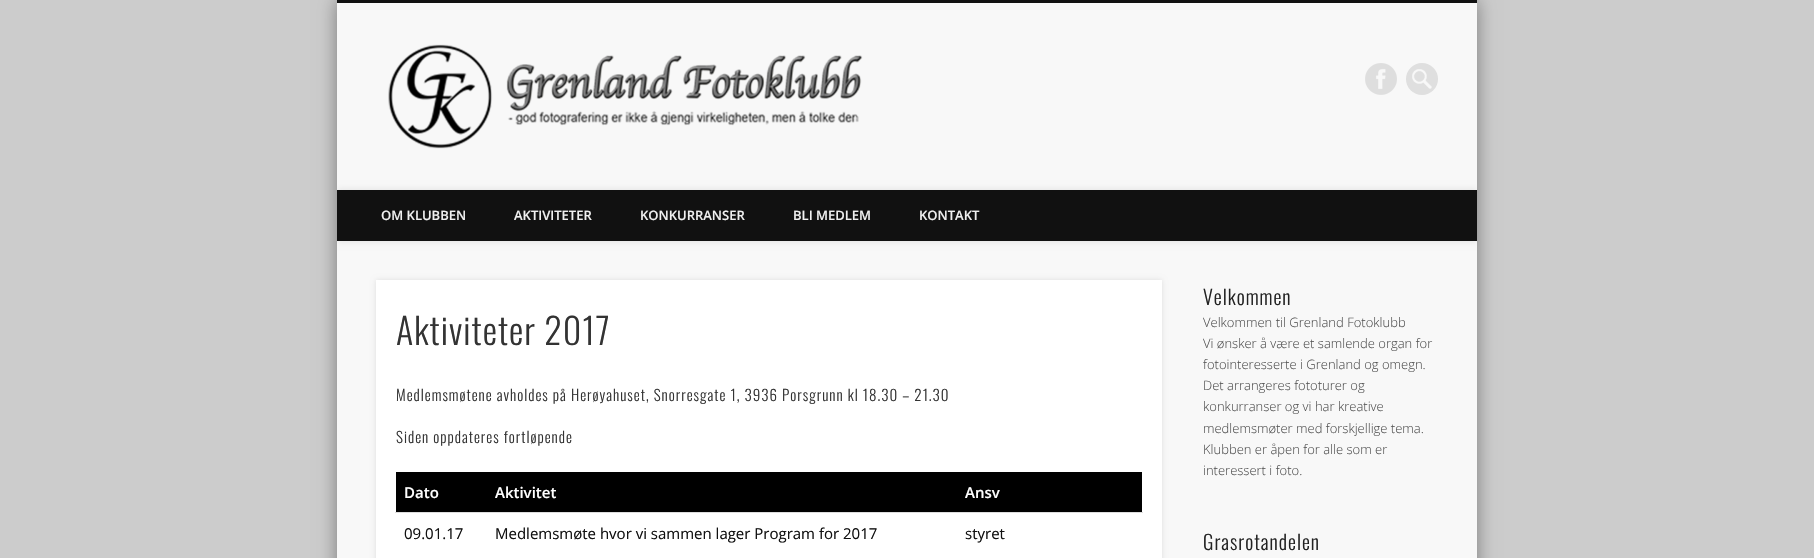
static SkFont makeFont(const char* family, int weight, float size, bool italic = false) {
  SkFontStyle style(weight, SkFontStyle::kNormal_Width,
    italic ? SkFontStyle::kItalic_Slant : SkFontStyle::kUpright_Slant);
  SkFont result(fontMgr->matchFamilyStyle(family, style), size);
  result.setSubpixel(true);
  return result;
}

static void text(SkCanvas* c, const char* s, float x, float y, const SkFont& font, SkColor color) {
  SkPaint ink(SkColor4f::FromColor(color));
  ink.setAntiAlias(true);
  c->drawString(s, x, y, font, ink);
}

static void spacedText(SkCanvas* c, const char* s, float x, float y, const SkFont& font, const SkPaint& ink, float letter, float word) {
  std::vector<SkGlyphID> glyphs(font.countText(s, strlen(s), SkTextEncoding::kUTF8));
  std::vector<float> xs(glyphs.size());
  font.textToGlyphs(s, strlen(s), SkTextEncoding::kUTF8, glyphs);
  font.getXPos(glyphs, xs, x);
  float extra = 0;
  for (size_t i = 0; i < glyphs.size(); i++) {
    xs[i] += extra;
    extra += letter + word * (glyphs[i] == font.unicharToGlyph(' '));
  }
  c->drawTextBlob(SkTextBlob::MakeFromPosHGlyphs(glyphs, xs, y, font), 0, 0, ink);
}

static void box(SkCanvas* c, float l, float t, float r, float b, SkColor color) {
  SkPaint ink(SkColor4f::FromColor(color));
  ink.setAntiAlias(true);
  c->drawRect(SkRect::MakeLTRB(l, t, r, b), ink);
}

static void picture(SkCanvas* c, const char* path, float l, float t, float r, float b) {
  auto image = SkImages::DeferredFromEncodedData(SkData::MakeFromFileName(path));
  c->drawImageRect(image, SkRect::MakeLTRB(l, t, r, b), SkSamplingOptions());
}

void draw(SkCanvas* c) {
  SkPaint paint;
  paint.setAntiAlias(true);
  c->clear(0xffcccccc);
  paint.setColor(0x66000000);
  paint.setMaskFilter(SkMaskFilter::MakeBlur(kNormal_SkBlurStyle, 9));
  c->drawRect(SkRect::MakeLTRB(337, 0, 1477, 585), paint);
  paint.setMaskFilter(nullptr);
  box(c, 337, 3, 1477, 558, 0xfff8f8f8);
  box(c, 337, 0, 1477, 3, 0xff111111);
  picture(c, "img_01.png", 388, 44, 863, 149);
  picture(c, "img_02.png", 1365, 63, 1397, 95);
  paint.setColor(0xffdfdfdf);
  c->drawCircle(1422, 79, 16, paint);
  picture(c, "img_03.png", 1412, 69, 1432, 89);
  c->save();
  c->clipRect(SkRect::MakeLTRB(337, 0, 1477, 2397));
  paint.setColor(0x1a000000);
  paint.setMaskFilter(SkMaskFilter::MakeBlur(kNormal_SkBlurStyle, 3.5f));
  c->drawRect(SkRect::MakeLTRB(337, 190, 1477, 241), paint);
  paint.setMaskFilter(nullptr);
  c->restore();
  box(c, 337, 190, 1477, 241, 0xff111111);
  SkFont face1 = makeFont("Open Sans", 600, 13);
  text(c, "OM KLUBBEN", 381, 220, face1, 0xfff0f0f0);
  text(c, "AKTIVITETER", 514, 220, face1, 0xfff0f0f0);
  text(c, "KONKURRANSER", 640, 220, face1, 0xfff0f0f0);
  text(c, "BLI MEDLEM", 793, 220, face1, 0xfff0f0f0);
  text(c, "KONTAKT", 919, 220, face1, 0xfff0f0f0);
  paint.setMaskFilter(SkMaskFilter::MakeBlur(kNormal_SkBlurStyle, 2.5f));
  c->drawRect(SkRect::MakeLTRB(376, 280, 1162, 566), paint);
  paint.setMaskFilter(nullptr);
  box(c, 376, 280, 1162, 558, 0xffffffff);
  SkFont face2 = makeFont("Oswald", 300, 36);
  paint.setColor(0xff333333);
  spacedText(c, "Aktiviteter 2017", 396, 345, face2, paint, 1, 0);
  SkFont face3 = makeFont("Oswald", 300, 15);
  spacedText(c, "Medlemsmøtene avholdes på Herøyahuset, Snorresgate 1, 3936 Porsgrunn kl 18.30 – 21.30", 396, 401, face3, paint, 1, 0);
  spacedText(c, "Siden oppdateres fortløpende", 396, 443, face3, paint, 1, 0);
  box(c, 396, 472, 1142, 512, 0xff000000);
  SkFont face4 = makeFont("Open Sans", 600, 15);
  text(c, "Dato", 404, 498, face4, 0xffffffff);
  text(c, "Aktivitet", 495, 498, face4, 0xffffffff);
  text(c, "Ansv", 965, 498, face4, 0xffffffff);
  SkFont face5 = makeFont("Open Sans", 400, 15);
  text(c, "09.01.17", 404, 539, face5, 0xff111111);
  text(c, "Medlemsmøte hvor vi sammen lager Program for 2017", 495, 539, face5, 0xff111111);
  box(c, 395, 512, 1143, 513, 0xffdddddd);
  text(c, "styret", 965, 539, face5, 0xff111111);
  SkFont face6 = makeFont("Oswald", 300, 20);
  paint.setColor(0xff232323);
  spacedText(c, "Velkommen", 1203, 305, face6, paint, 1, 0);
  SkFont face7 = makeFont("Open Sans", 300, 13);
  text(c, "Velkommen til Grenland Fotoklubb", 1203, 327, face7, 0xff545454);
  text(c, "Vi ønsker å være et samlende organ for", 1203, 348, face7, 0xff545454);
  text(c, "fotointeresserte i Grenland og omegn.", 1203, 369, face7, 0xff545454);
  text(c, "Det arrangeres fototurer og", 1203, 390, face7, 0xff545454);
  text(c, "konkurranser og vi har kreative", 1203, 411, face7, 0xff545454);
  text(c, "medlemsmøter med forskjellige tema.", 1203, 433, face7, 0xff545454);
  text(c, "Klubben er åpen for alle som er", 1203, 454, face7, 0xff545454);
  text(c, "interessert i foto.", 1203, 475, face7, 0xff545454);
  spacedText(c, "Grasrotandelen", 1203, 550, face6, paint, 1, 0);
}
